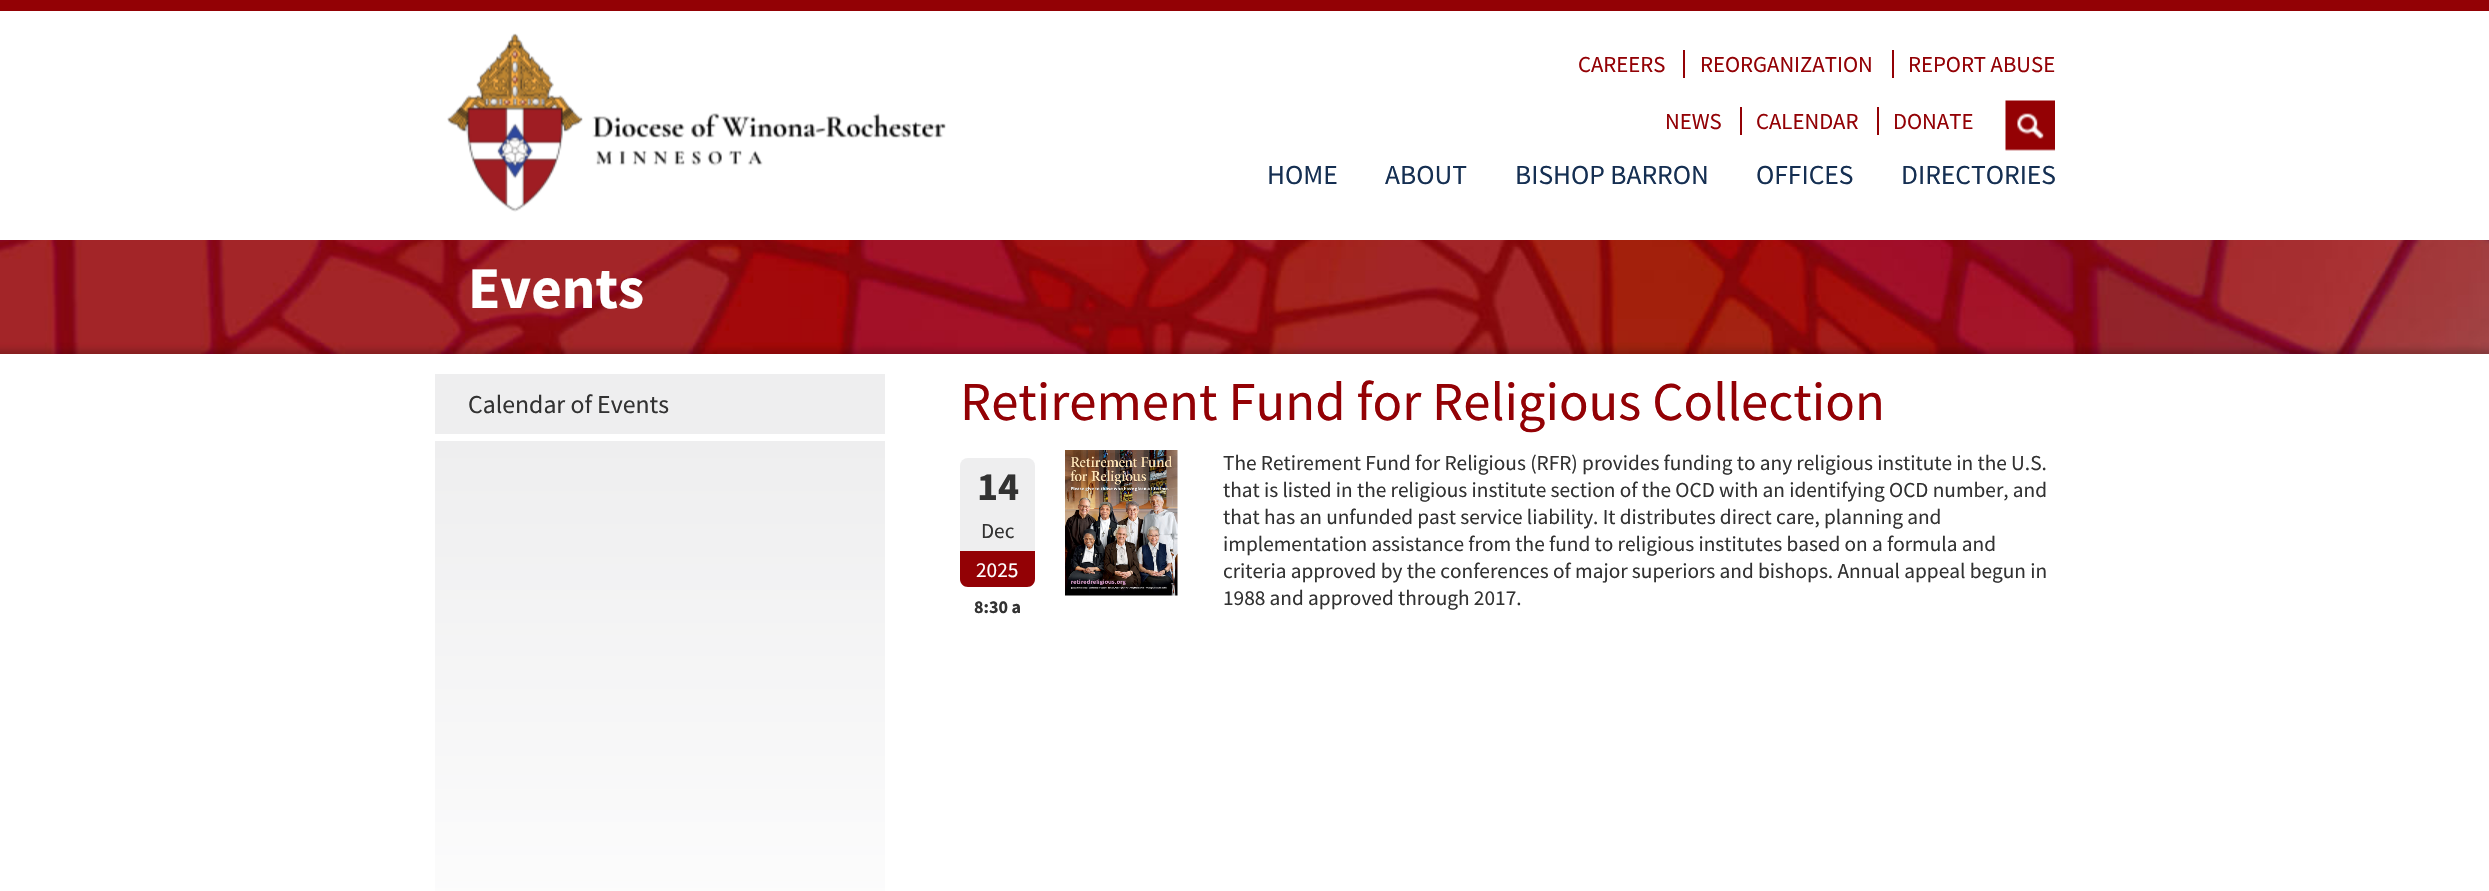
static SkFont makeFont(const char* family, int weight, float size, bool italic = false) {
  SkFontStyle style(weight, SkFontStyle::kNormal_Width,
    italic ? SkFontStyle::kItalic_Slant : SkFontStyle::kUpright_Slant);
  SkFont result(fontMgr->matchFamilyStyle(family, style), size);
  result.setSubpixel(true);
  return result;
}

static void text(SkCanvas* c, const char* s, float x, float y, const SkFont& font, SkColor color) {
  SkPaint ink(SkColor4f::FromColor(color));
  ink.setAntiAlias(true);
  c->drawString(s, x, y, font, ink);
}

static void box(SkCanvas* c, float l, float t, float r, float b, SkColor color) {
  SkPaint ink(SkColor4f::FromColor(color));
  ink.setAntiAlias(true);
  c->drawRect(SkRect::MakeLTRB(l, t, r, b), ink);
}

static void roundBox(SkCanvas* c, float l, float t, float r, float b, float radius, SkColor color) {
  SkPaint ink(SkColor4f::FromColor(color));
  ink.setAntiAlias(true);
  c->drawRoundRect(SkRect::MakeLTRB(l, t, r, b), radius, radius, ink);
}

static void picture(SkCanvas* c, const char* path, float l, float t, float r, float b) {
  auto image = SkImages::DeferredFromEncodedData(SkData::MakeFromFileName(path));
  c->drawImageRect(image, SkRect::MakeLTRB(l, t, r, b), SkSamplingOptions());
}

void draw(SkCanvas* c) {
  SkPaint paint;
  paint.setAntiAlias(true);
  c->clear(0xffffffff);
  box(c, 0, 0, 2489, 11, 0xff930105);
  picture(c, "img_01.png", 447, 33, 946, 212);
  SkFont face1 = makeFont("Source Sans Pro", 400, 22.75f);
  text(c, "CAREERS", 1578, 72, face1, 0xff930105);
  box(c, 1683, 50, 1685, 78, 0xff930105);
  text(c, "REORGANIZATION", 1700, 72, face1, 0xff930105);
  box(c, 1892, 50, 1894, 78, 0xff930105);
  text(c, "REPORT ABUSE", 1908, 72, face1, 0xff930105);
  text(c, "NEWS", 1665, 129, face1, 0xff930105);
  box(c, 1740, 107, 1742, 135, 0xff930105);
  text(c, "CALENDAR", 1756, 129, face1, 0xff930105);
  box(c, 1877, 107, 1879, 135, 0xff930105);
  text(c, "DONATE", 1893, 129, face1, 0xff930105);
  picture(c, "img_02.png", 2005, 100, 2055, 151);
  SkFont face2 = makeFont("Source Sans Pro", 400, 27.5f);
  text(c, "HOME", 1267, 184, face2, 0xff152f52);
  text(c, "ABOUT", 1385, 184, face2, 0xff152f52);
  text(c, "BISHOP BARRON", 1515, 184, face2, 0xff152f52);
  text(c, "OFFICES", 1756, 184, face2, 0xff152f52);
  text(c, "DIRECTORIES", 1901, 184, face2, 0xff152f52);
  picture(c, "img_03.png", 0, 240, 2489, 354);
  SkFont face3 = makeFont("Source Sans Pro", 700, 59);
  text(c, "Events", 468, 308, face3, 0xffffffff);
  box(c, 435, 374, 885, 434, 0xffeeeeef);
  SkFont face4 = makeFont("Source Sans Pro", 400, 25.75f);
  text(c, "Calendar of Events", 468, 413, face4, 0xff323232);
  {
    const SkColor colors[] = {0xffeeeeef, 0xffffffff};
    const float stops[] = {0, 1};
    const SkPoint ends[] = {{660, 441}, {660, 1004}};
    paint.setShader(SkGradientShader::MakeLinear(ends, colors, stops, 2, SkTileMode::kClamp));
    paint.setAlpha(255);
  }
  c->drawRect(SkRect::MakeLTRB(435, 441, 885, 891), paint);
  SkFont face5 = makeFont("Source Sans Pro", 400, 54.75f);
  text(c, "Retirement Fund for Religious Collection", 960, 420, face5, 0xff930105);
  roundBox(c, 960, 458, 1035, 587, 8, 0xffeeeeef);
  SkFont face6 = makeFont("Source Sans Pro", 700, 40);
  text(c, "14", 977, 500, face6, 0xff323232);
  SkFont face7 = makeFont("Source Sans Pro", 400, 21.3f);
  text(c, "Dec", 981, 538, face7, 0xff323232);
  paint.setShader(nullptr);
  paint.setColor(0xff930105);
  c->drawPath(SkPathBuilder().moveTo(960, 551).lineTo(1035, 551).lineTo(1035, 579).cubicTo(1035, 583.5f, 1031.5f, 587, 1027, 587).lineTo(968, 587).cubicTo(963.5f, 587, 960, 583.5f, 960, 579).close().detach(), paint);
  text(c, "2025", 976, 577, face7, 0xffffffff);
  SkFont face8 = makeFont("Source Sans Pro", 700, 18);
  text(c, "8:30 a", 974, 613, face8, 0xff323232);
  picture(c, "img_04.png", 1065, 450, 1178, 596);
  text(c, "The Retirement Fund for Religious (RFR) provides funding to any religious institute in the U.S.", 1223, 470, face7, 0xff323232);
  text(c, "that is listed in the religious institute section of the OCD with an identifying OCD number, and", 1223, 497, face7, 0xff323232);
  text(c, "that has an unfunded past service liability. It distributes direct care, planning and", 1223, 524, face7, 0xff323232);
  text(c, "implementation assistance from the fund to religious institutes based on a formula and", 1223, 551, face7, 0xff323232);
  text(c, "criteria approved by the conferences of major superiors and bishops. Annual appeal begun in", 1223, 578, face7, 0xff323232);
  text(c, "1988 and approved through 2017.", 1223, 605, face7, 0xff323232);
}
